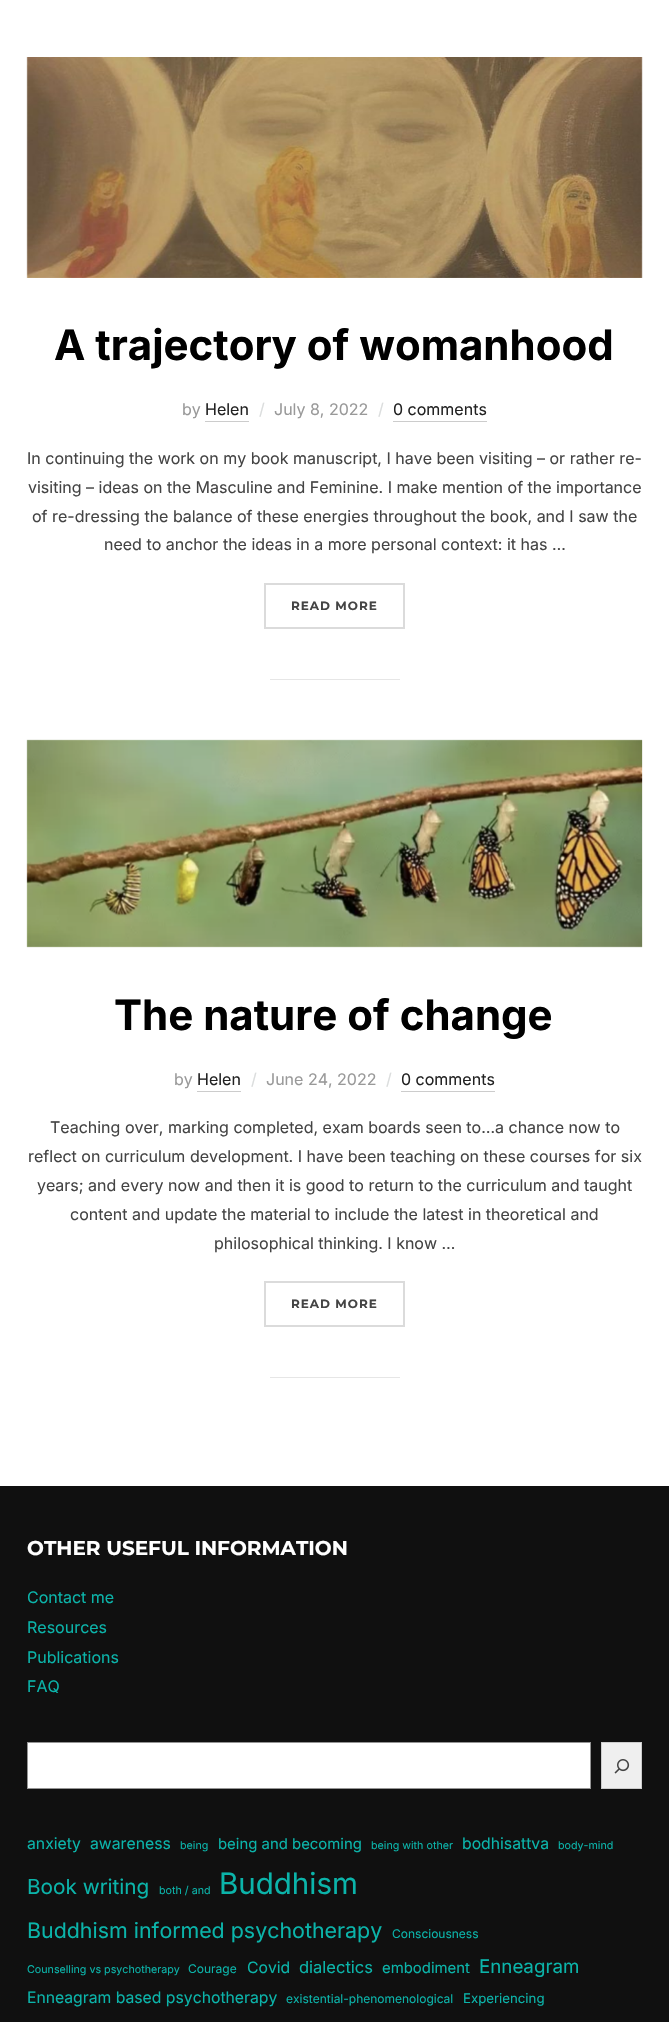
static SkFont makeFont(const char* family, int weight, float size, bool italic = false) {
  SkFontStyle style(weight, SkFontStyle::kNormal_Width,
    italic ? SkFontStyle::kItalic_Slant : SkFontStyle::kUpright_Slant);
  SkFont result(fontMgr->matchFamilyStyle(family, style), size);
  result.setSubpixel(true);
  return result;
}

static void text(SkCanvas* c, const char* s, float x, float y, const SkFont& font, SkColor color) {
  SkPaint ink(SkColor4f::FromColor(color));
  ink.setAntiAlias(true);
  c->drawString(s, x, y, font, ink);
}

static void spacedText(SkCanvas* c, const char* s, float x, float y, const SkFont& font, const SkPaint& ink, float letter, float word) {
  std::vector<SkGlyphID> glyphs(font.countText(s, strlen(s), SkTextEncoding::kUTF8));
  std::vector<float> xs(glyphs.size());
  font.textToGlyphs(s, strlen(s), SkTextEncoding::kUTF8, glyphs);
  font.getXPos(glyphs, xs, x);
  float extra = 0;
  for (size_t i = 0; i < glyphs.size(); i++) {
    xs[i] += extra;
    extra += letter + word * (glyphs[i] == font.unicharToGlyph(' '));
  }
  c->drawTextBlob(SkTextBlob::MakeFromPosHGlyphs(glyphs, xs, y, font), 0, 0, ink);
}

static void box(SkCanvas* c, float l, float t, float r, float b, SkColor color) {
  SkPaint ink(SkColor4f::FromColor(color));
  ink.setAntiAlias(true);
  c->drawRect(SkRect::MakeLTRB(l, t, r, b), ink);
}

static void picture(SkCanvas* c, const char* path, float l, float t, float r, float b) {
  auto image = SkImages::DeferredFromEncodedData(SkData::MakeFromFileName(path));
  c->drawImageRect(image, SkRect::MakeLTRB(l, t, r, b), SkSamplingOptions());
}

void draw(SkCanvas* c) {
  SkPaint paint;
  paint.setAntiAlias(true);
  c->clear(0xffffffff);
  picture(c, "img_01.png", 26, 57, 643, 278);
  SkFont face1 = makeFont("Inter", 700, 42);
  text(c, "A trajectory of womanhood", 54, 360, face1, 0xff000000);
  SkFont face2 = makeFont("Inter", 400, 16);
  text(c, "by", 182, 415, face2, 0xff999999);
  text(c, "Helen", 205, 415, face2, 0xff222222);
  box(c, 205, 421, 249, 422, 0xffcccccc);
  text(c, "/", 259, 415, face2, 0xffdbdddd);
  text(c, "July 8, 2022", 274, 415, face2, 0xff999999);
  text(c, "/", 378, 415, face2, 0xffdbdddd);
  text(c, "0 comments", 393, 415, face2, 0xff222222);
  box(c, 393, 421, 487, 422, 0xffcccccc);
  text(c, "In continuing the work on my book manuscript, I have been visiting – or rather re-", 27, 464, face2, 0xff444444);
  text(c, "visiting – ideas on the Masculine and Feminine. I make mention of the importance", 28, 493, face2, 0xff444444);
  text(c, "of re-dressing the balance of these energies throughout the book, and I saw the", 32, 522, face2, 0xff444444);
  text(c, "need to anchor the ideas in a more personal context: it has …", 104, 550, face2, 0xff444444);
  paint.setStyle(SkPaint::kStroke_Style);
  paint.setStrokeWidth(2);
  paint.setColor(0xffdbdbdb);
  c->drawRect(SkRect::MakeLTRB(265, 584, 404, 628), paint);
  SkFont face3 = makeFont("Montserrat", 700, 12);
  paint.setStyle(SkPaint::kFill_Style);
  paint.setColor(0xff444444);
  spacedText(c, "READ MORE", 291, 610, face3, paint, 1, 0);
  box(c, 270, 679, 400, 680, 0xffe6e6e6);
  picture(c, "img_02.png", 26, 739, 643, 948);
  text(c, "The nature of change", 114, 1030, face1, 0xff000000);
  text(c, "by", 174, 1085, face2, 0xff999999);
  text(c, "Helen", 197, 1085, face2, 0xff222222);
  box(c, 197, 1091, 241, 1092, 0xffcccccc);
  text(c, "/", 251, 1085, face2, 0xffdbdddd);
  text(c, "June 24, 2022", 266, 1085, face2, 0xff999999);
  text(c, "/", 386, 1085, face2, 0xffdbdddd);
  text(c, "0 comments", 401, 1085, face2, 0xff222222);
  box(c, 401, 1091, 495, 1092, 0xffcccccc);
  text(c, "Teaching over, marking completed, exam boards seen to…a chance now to", 50, 1133, face2, 0xff444444);
  text(c, "reflect on curriculum development. I have been teaching on these courses for six", 28, 1162, face2, 0xff444444);
  text(c, "years; and every now and then it is good to return to the curriculum and taught", 37, 1191, face2, 0xff444444);
  text(c, "content and update the material to include the latest in theoretical and", 70, 1220, face2, 0xff444444);
  text(c, "philosophical thinking. I know …", 214, 1249, face2, 0xff444444);
  paint.setStyle(SkPaint::kStroke_Style);
  paint.setColor(0xffdbdbdb);
  c->drawRect(SkRect::MakeLTRB(265, 1282, 404, 1326), paint);
  paint.setStyle(SkPaint::kFill_Style);
  paint.setColor(0xff444444);
  spacedText(c, "READ MORE", 291, 1308, face3, paint, 1, 0);
  box(c, 270, 1377, 400, 1378, 0xffe6e6e6);
  box(c, 0, 1486, 669, 2022, 0xff101010);
  SkFont face4 = makeFont("Montserrat", 700, 20);
  text(c, "OTHER USEFUL INFORMATION", 27, 1555, face4, 0xffffffff);
  text(c, "Contact me", 27, 1603, face2, 0xff0bb4aa);
  text(c, "Resources", 27, 1633, face2, 0xff0bb4aa);
  text(c, "Publications", 27, 1663, face2, 0xff0bb4aa);
  text(c, "FAQ", 27, 1692, face2, 0xff0bb4aa);
  paint.setColor(0xffffffff);
  c->drawRect(SkRect::MakeLTRB(27.5f, 1742.5f, 590.5f, 1788.5f), paint);
  paint.setStyle(SkPaint::kStroke_Style);
  paint.setStrokeWidth(1);
  paint.setColor(0xff949494);
  c->drawRect(SkRect::MakeLTRB(27.5f, 1742.5f, 590.5f, 1788.5f), paint);
  paint.setStyle(SkPaint::kFill_Style);
  paint.setColor(0xffefefef);
  c->drawRect(SkRect::MakeLTRB(601.5f, 1742.5f, 641.5f, 1788.5f), paint);
  paint.setStyle(SkPaint::kStroke_Style);
  paint.setColor(0xffcccccc);
  c->drawRect(SkRect::MakeLTRB(601.5f, 1742.5f, 641.5f, 1788.5f), paint);
  picture(c, "img_03.png", 614, 1759, 630, 1774);
  SkFont face5 = makeFont("Inter", 400, 15.75f);
  text(c, "anxiety", 27, 1849, face5, 0xff0bb4aa);
  text(c, "awareness", 90, 1849, face5, 0xff0bb4aa);
  SkFont face6 = makeFont("Inter", 400, 10.7f);
  text(c, "being", 180, 1849, face6, 0xff0bb4aa);
  SkFont face7 = makeFont("Inter", 400, 14.9f);
  text(c, "being and becoming", 218, 1849, face7, 0xff0bb4aa);
  text(c, "being with other", 371, 1849, face6, 0xff0bb4aa);
  text(c, "bodhisattva", 462, 1849, face5, 0xff0bb4aa);
  text(c, "body-mind", 558, 1849, face6, 0xff0bb4aa);
  SkFont face8 = makeFont("Inter", 400, 20.75f);
  text(c, "Book writing", 27, 1894, face8, 0xff0bb4aa);
  text(c, "both / and", 159, 1894, face6, 0xff0bb4aa);
  SkFont face9 = makeFont("Inter", 400, 29.5f);
  text(c, "Buddhism", 219, 1894, face9, 0xff0bb4aa);
  SkFont face10 = makeFont("Inter", 400, 21.4f);
  text(c, "Buddhism informed psychotherapy", 27, 1938, face10, 0xff0bb4aa);
  SkFont face11 = makeFont("Inter", 400, 12);
  text(c, "Consciousness", 392, 1938, face11, 0xff0bb4aa);
  text(c, "Counselling vs psychotherapy", 27, 1973, face6, 0xff0bb4aa);
  text(c, "Courage", 188, 1973, face11, 0xff0bb4aa);
  text(c, "Covid", 247, 1973, face5, 0xff0bb4aa);
  SkFont face12 = makeFont("Inter", 400, 16.5f);
  text(c, "dialectics", 299, 1973, face12, 0xff0bb4aa);
  text(c, "embodiment", 382, 1973, face7, 0xff0bb4aa);
  SkFont face13 = makeFont("Inter", 400, 18.75f);
  text(c, "Enneagram", 479, 1973, face13, 0xff0bb4aa);
  text(c, "Enneagram based psychotherapy", 27, 2003, face5, 0xff0bb4aa);
  text(c, "existential-phenomenological", 286, 2003, face11, 0xff0bb4aa);
  SkFont face14 = makeFont("Inter", 400, 13.25f);
  text(c, "Experiencing", 463, 2003, face14, 0xff0bb4aa);
}
